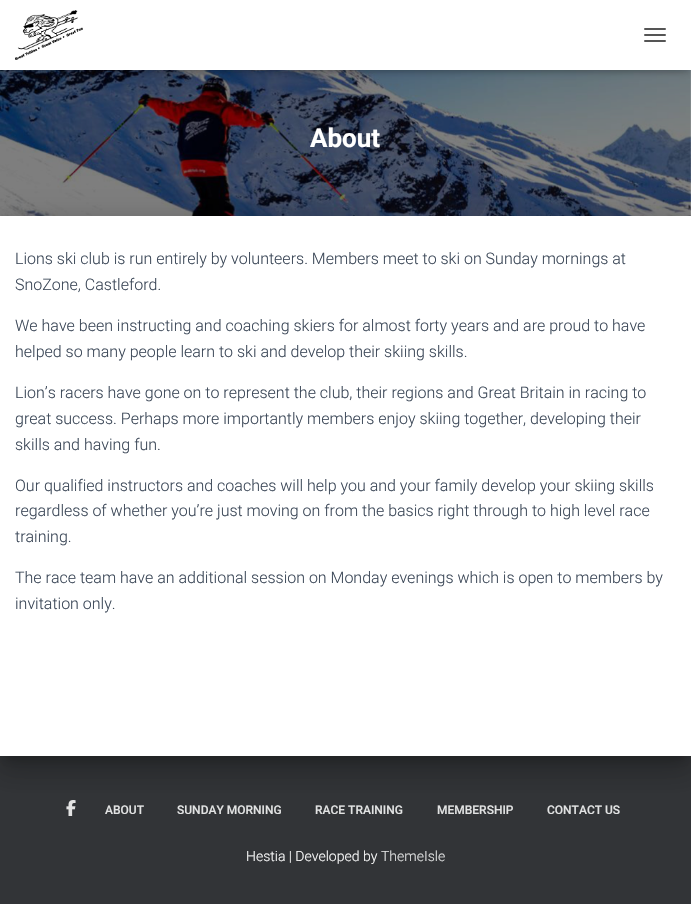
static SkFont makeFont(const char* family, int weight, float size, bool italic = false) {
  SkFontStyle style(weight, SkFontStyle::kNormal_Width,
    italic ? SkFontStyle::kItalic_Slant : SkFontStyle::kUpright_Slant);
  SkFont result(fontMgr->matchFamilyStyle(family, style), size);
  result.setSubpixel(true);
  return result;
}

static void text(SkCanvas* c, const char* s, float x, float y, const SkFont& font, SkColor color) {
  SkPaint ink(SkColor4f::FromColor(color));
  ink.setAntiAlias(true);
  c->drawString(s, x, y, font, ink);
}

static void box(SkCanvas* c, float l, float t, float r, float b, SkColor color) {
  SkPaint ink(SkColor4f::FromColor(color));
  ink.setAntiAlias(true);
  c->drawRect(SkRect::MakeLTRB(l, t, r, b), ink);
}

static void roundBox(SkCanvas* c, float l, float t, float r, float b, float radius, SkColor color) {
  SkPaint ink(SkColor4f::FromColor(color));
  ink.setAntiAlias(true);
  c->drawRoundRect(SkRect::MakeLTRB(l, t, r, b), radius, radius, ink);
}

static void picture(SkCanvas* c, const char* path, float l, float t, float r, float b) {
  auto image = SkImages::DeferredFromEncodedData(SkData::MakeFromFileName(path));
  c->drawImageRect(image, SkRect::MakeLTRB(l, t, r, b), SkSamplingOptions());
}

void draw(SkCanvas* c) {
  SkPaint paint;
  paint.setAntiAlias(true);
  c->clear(0xffffffff);
  picture(c, "img_02.png", 0, 70, 691, 216);
  paint.setColor(0x1a000000);
  paint.setMaskFilter(SkMaskFilter::MakeBlur(kNormal_SkBlurStyle, 2.5f));
  c->drawRect(SkRect::MakeLTRB(2, 6, 689, 72), paint);
  paint.setMaskFilter(nullptr);
  paint.setColor(0x1f000000);
  paint.setMaskFilter(SkMaskFilter::MakeBlur(kNormal_SkBlurStyle, 5));
  c->drawRect(SkRect::MakeLTRB(0, 1, 691, 71), paint);
  paint.setMaskFilter(nullptr);
  paint.setColor(0x6b000000);
  paint.setMaskFilter(SkMaskFilter::MakeBlur(kNormal_SkBlurStyle, 5));
  c->drawRect(SkRect::MakeLTRB(6, 7, 685, 65), paint);
  paint.setMaskFilter(nullptr);
  box(c, 0, 0, 691, 70, 0xffffffff);
  picture(c, "img_01.png", 15, 10, 83, 60);
  roundBox(c, 644, 28, 666, 30, 1, 0xff555555);
  roundBox(c, 644, 34, 666, 36, 1, 0xff555555);
  roundBox(c, 644, 40, 666, 42, 1, 0xff555555);
  SkFont face1 = makeFont("Roboto", 700, 26);
  text(c, "About", 310, 147, face1, 0xffffffff);
  box(c, 0, 756, 691, 904, 0xff323437);
  paint.setColor(0x33000000);
  paint.setMaskFilter(SkMaskFilter::MakeBlur(kNormal_SkBlurStyle, 5));
  c->drawRect(SkRect::MakeLTRB(5, 229, 686, 759), paint);
  paint.setMaskFilter(nullptr);
  paint.setColor(0x1f000000);
  paint.setMaskFilter(SkMaskFilter::MakeBlur(kNormal_SkBlurStyle, 15));
  c->drawRect(SkRect::MakeLTRB(-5, 217, 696, 767), paint);
  paint.setMaskFilter(nullptr);
  paint.setColor(0x24000000);
  paint.setMaskFilter(SkMaskFilter::MakeBlur(kNormal_SkBlurStyle, 12));
  c->drawRect(SkRect::MakeLTRB(-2, 230, 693, 774), paint);
  paint.setMaskFilter(nullptr);
  box(c, 0, 216, 691, 756, 0xffffffff);
  SkFont face2 = makeFont("Roboto", 300, 16);
  text(c, "Lions ski club is run entirely by volunteers. Members meet to ski on Sunday mornings at", 15, 264, face2, 0xff3c4858);
  text(c, "SnoZone, Castleford.", 15, 290, face2, 0xff3c4858);
  text(c, "We have been instructing and coaching skiers for almost forty years and are proud to have", 15, 331, face2, 0xff3c4858);
  text(c, "helped so many people learn to ski and develop their skiing skills.", 15, 357, face2, 0xff3c4858);
  text(c, "Lion’s racers have gone on to represent the club, their regions and Great Britain in racing to", 15, 398, face2, 0xff3c4858);
  text(c, "great success. Perhaps more importantly members enjoy skiing together, developing their", 15, 424, face2, 0xff3c4858);
  text(c, "skills and having fun.", 15, 450, face2, 0xff3c4858);
  text(c, "Our qualified instructors and coaches will help you and your family develop your skiing skills", 15, 491, face2, 0xff3c4858);
  text(c, "regardless of whether you’re just moving on from the basics right through to high level race", 15, 516, face2, 0xff3c4858);
  text(c, "training.", 15, 542, face2, 0xff3c4858);
  text(c, "The race team have an additional session on Monday evenings which is open to members by", 15, 583, face2, 0xff3c4858);
  text(c, "invitation only.", 15, 609, face2, 0xff3c4858);
  picture(c, "img_03.png", 66, 800, 76, 816);
  SkFont face3 = makeFont("Roboto", 500, 12);
  text(c, "ABOUT", 105, 814, face3, 0xffe2e3e3);
  text(c, "SUNDAY MORNING", 177, 814, face3, 0xffe2e3e3);
  text(c, "RACE TRAINING", 315, 814, face3, 0xffe2e3e3);
  text(c, "MEMBERSHIP", 437, 814, face3, 0xffe2e3e3);
  text(c, "CONTACT US", 547, 814, face3, 0xffe2e3e3);
  SkFont face4 = makeFont("Roboto", 300, 14);
  text(c, "Hestia | Developed by", 246, 861, face4, 0xffffffff);
  text(c, "ThemeIsle", 381, 861, face4, 0xffe2e3e3);
}
